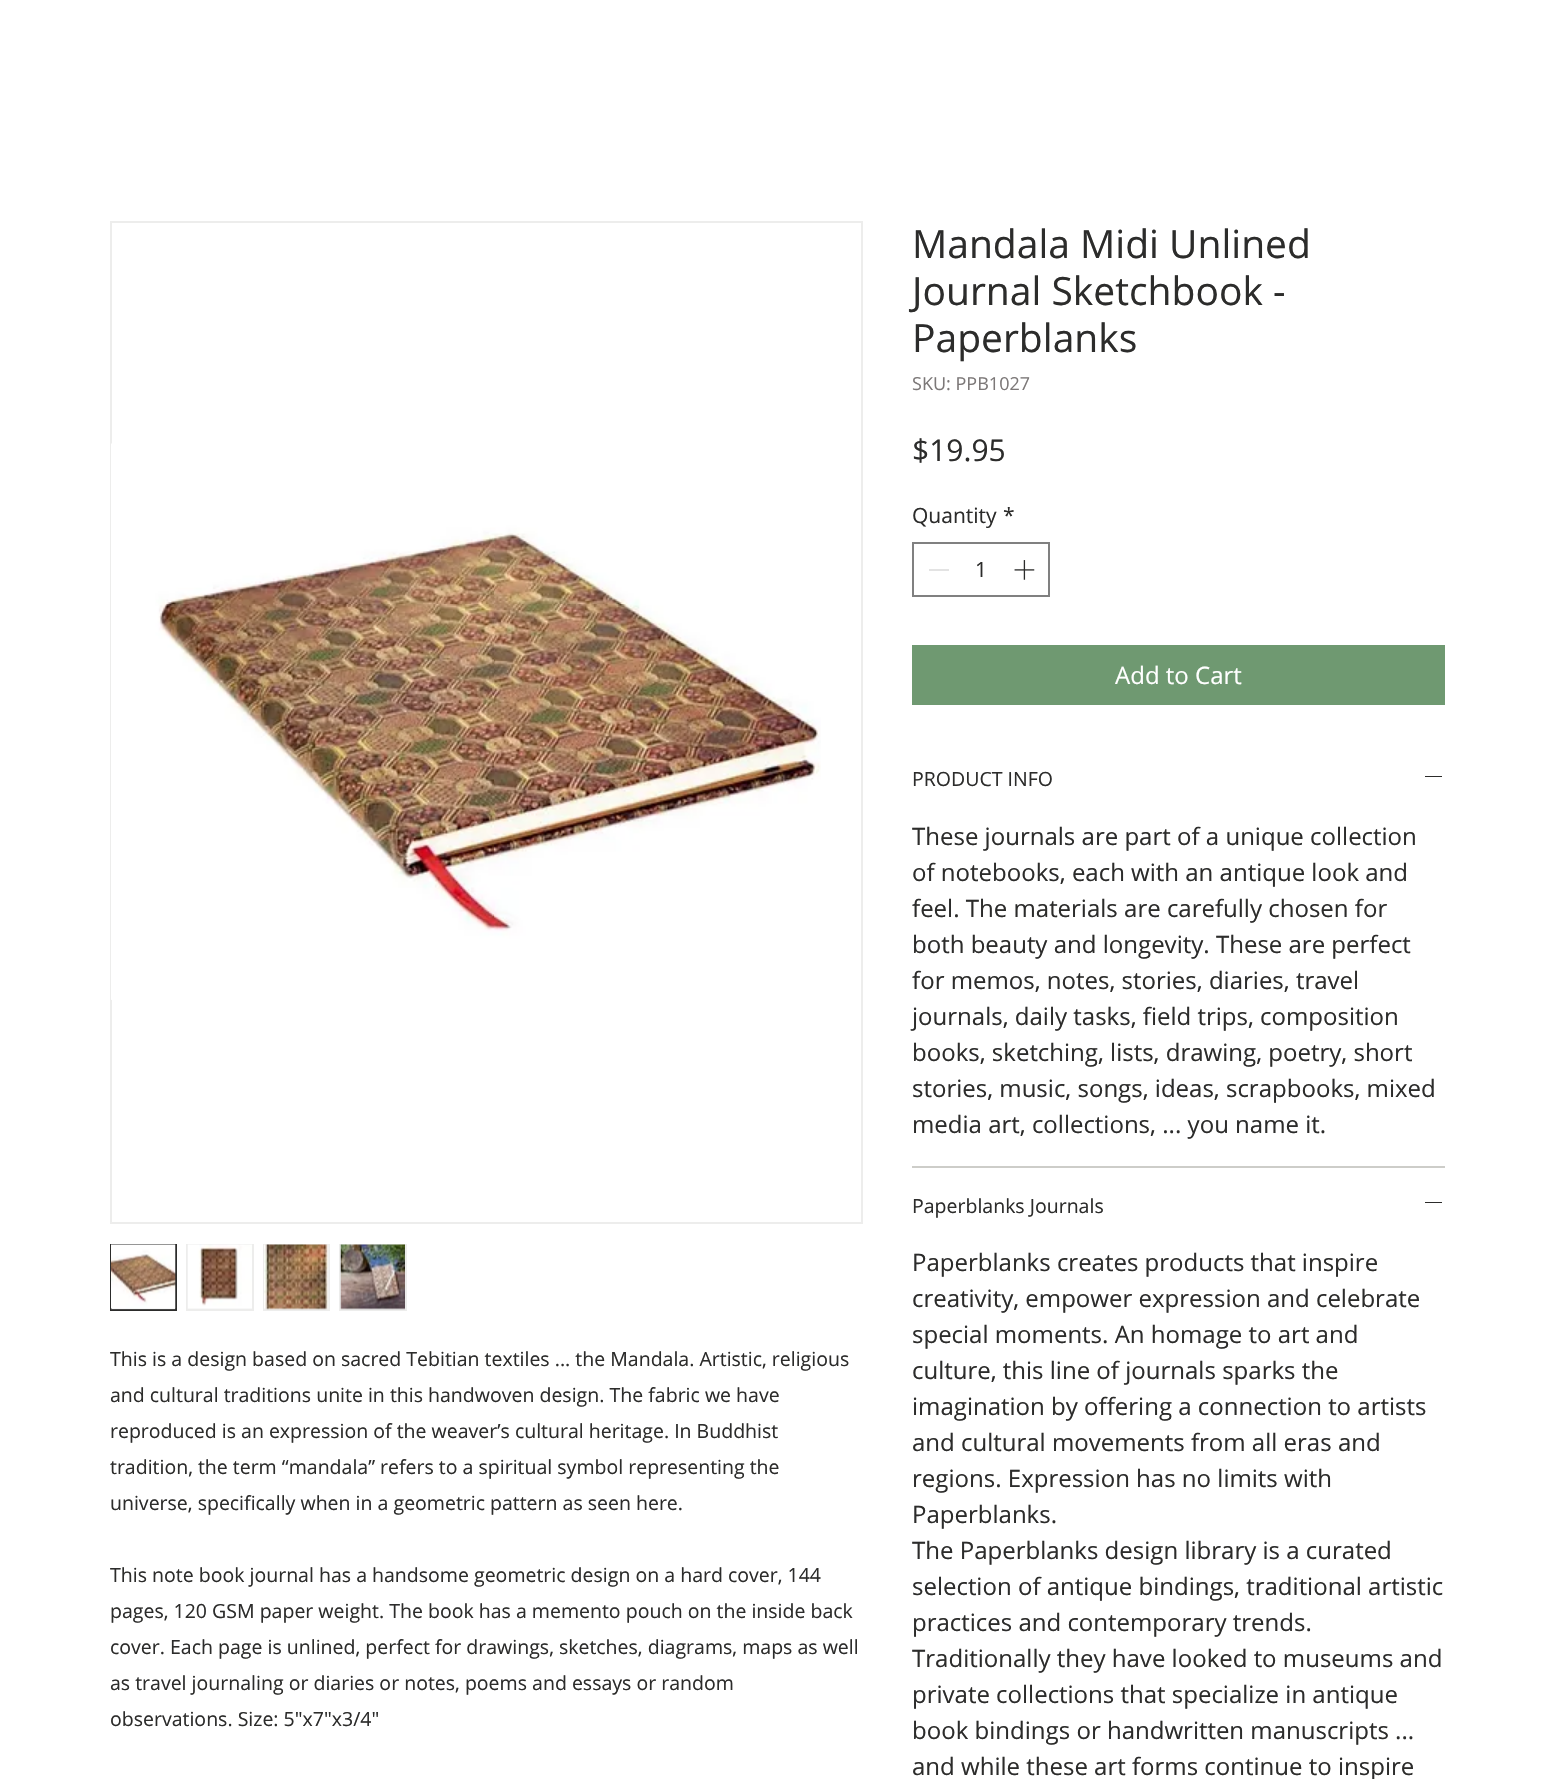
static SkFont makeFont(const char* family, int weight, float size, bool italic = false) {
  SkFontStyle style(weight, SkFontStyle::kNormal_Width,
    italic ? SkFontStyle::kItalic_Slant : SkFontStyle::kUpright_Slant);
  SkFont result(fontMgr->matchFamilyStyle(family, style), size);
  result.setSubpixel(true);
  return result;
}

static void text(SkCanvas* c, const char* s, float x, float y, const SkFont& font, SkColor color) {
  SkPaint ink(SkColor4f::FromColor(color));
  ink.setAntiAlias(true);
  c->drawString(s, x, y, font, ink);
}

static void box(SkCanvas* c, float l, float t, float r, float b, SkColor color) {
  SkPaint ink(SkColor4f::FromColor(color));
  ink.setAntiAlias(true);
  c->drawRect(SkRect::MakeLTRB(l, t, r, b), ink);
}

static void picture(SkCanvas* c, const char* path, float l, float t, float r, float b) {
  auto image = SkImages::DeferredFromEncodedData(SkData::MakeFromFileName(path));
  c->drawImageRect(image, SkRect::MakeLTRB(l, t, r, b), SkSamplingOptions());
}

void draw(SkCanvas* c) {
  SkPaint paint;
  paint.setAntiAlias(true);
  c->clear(0xffffffff);
  paint.setStyle(SkPaint::kStroke_Style);
  paint.setStrokeWidth(2);
  paint.setColor(0xffededec);
  c->drawRect(SkRect::MakeLTRB(111, 222, 862, 1223), paint);
  picture(c, "img_01.png", 111, 443, 821, 1000);
  box(c, 112, 1308, 175, 1309, 0xffededec);
  paint.setColor(0xff2c2c2b);
  c->drawRect(SkRect::MakeLTRB(111, 1245, 176, 1310), paint);
  picture(c, "img_02.png", 111, 1244, 176, 1310);
  box(c, 186, 1244, 254, 1311, 0xffededec);
  picture(c, "img_03.png", 187, 1244, 252, 1309);
  box(c, 263, 1244, 330, 1311, 0xffededec);
  picture(c, "img_04.png", 264, 1244, 329, 1310);
  box(c, 339, 1244, 407, 1311, 0xffededec);
  picture(c, "img_05.png", 340, 1244, 405, 1310);
  SkFont face1 = makeFont("Open Sans", 400, 19.5f);
  text(c, "This is a design based on sacred Tebitian textiles ... the Mandala. Artistic, religious", 110, 1366, face1, 0xff2c2c2b);
  text(c, "and cultural traditions unite in this handwoven design. The fabric we have", 110, 1402, face1, 0xff2c2c2b);
  text(c, "reproduced is an expression of the weaver’s cultural heritage. In Buddhist", 110, 1438, face1, 0xff2c2c2b);
  text(c, "tradition, the term “mandala” refers to a spiritual symbol representing the", 110, 1474, face1, 0xff2c2c2b);
  text(c, "universe, specifically when in a geometric pattern as seen here.", 110, 1510, face1, 0xff2c2c2b);
  text(c, "This note book journal has a handsome geometric design on a hard cover, 144", 110, 1582, face1, 0xff2c2c2b);
  text(c, "pages, 120 GSM paper weight. The book has a memento pouch on the inside back", 110, 1618, face1, 0xff2c2c2b);
  text(c, "cover. Each page is unlined, perfect for drawings, sketches, diagrams, maps as well", 110, 1654, face1, 0xff2c2c2b);
  text(c, "as travel journaling or diaries or notes, poems and essays or random", 110, 1690, face1, 0xff2c2c2b);
  text(c, "observations. Size: 5\"x7\"x3/4\"", 110, 1726, face1, 0xff2c2c2b);
  SkFont face2 = makeFont("Open Sans", 400, 39);
  text(c, "Mandala Midi Unlined", 912, 258, face2, 0xff2c2c2b);
  text(c, "Journal Sketchbook -", 912, 305, face2, 0xff2c2c2b);
  text(c, "Paperblanks", 912, 352, face2, 0xff2c2c2b);
  SkFont face3 = makeFont("Open Sans", 400, 18);
  text(c, "SKU: PPB1027", 912, 390, face3, 0xff7c7878);
  SkFont face4 = makeFont("Open Sans", 400, 30);
  text(c, "$19.95", 912, 461, face4, 0xff2c2c2b);
  SkFont face5 = makeFont("Open Sans", 400, 21);
  text(c, "Quantity", 912, 523, face5, 0xff2c2c2b);
  text(c, "*", 1003, 523, face5, 0xff2c2c2b);
  paint.setColor(0xff808080);
  c->drawRect(SkRect::MakeLTRB(913, 543, 1049, 596), paint);
  box(c, 929, 569, 949, 571, 0xffe3e3e3);
  text(c, "1", 975, 577, face5, 0xff2c2c2b);
  picture(c, "img_06.png", 1014, 560, 1035, 580);
  box(c, 912, 645, 1445, 705, 0xff6f9971);
  SkFont face6 = makeFont("Open Sans", 400, 24);
  text(c, "Add to Cart", 1115, 684, face6, 0xffffffff);
  box(c, 912, 1166, 1445, 1168, 0xffcdcdc9);
  text(c, "PRODUCT INFO", 912, 786, face1, 0xff2c2c2b);
  box(c, 1425, 776, 1442, 777, 0xff2c2c2b);
  text(c, "These journals are part of a unique collection", 912, 845, face6, 0xff2c2c2b);
  text(c, "of notebooks, each with an antique look and", 912, 881, face6, 0xff2c2c2b);
  text(c, "feel. The materials are carefully chosen for", 912, 917, face6, 0xff2c2c2b);
  text(c, "both beauty and longevity. These are perfect", 912, 953, face6, 0xff2c2c2b);
  text(c, "for memos, notes, stories, diaries, travel", 912, 989, face6, 0xff2c2c2b);
  text(c, "journals, daily tasks, field trips, composition", 912, 1025, face6, 0xff2c2c2b);
  text(c, "books, sketching, lists, drawing, poetry, short", 912, 1061, face6, 0xff2c2c2b);
  text(c, "stories, music, songs, ideas, scrapbooks, mixed", 912, 1097, face6, 0xff2c2c2b);
  text(c, "media art, collections, ... you name it.", 912, 1133, face6, 0xff2c2c2b);
  text(c, "Paperblanks Journals", 912, 1213, face1, 0xff2c2c2b);
  box(c, 1425, 1202, 1442, 1203, 0xff2c2c2b);
  text(c, "Paperblanks creates products that inspire", 912, 1271, face6, 0xff2c2c2b);
  text(c, "creativity, empower expression and celebrate", 912, 1307, face6, 0xff2c2c2b);
  text(c, "special moments. An homage to art and", 912, 1343, face6, 0xff2c2c2b);
  text(c, "culture, this line of journals sparks the", 912, 1379, face6, 0xff2c2c2b);
  text(c, "imagination by offering a connection to artists", 912, 1415, face6, 0xff2c2c2b);
  text(c, "and cultural movements from all eras and", 912, 1451, face6, 0xff2c2c2b);
  text(c, "regions. Expression has no limits with", 912, 1487, face6, 0xff2c2c2b);
  text(c, "Paperblanks.", 912, 1523, face6, 0xff2c2c2b);
  text(c, "The Paperblanks design library is a curated", 912, 1559, face6, 0xff2c2c2b);
  text(c, "selection of antique bindings, traditional artistic", 912, 1595, face6, 0xff2c2c2b);
  text(c, "practices and contemporary trends.", 912, 1631, face6, 0xff2c2c2b);
  text(c, "Traditionally they have looked to museums and", 912, 1667, face6, 0xff2c2c2b);
  text(c, "private collections that specialize in antique", 912, 1703, face6, 0xff2c2c2b);
  text(c, "book bindings or handwritten manuscripts ...", 912, 1739, face6, 0xff2c2c2b);
  text(c, "and while these art forms continue to inspire", 912, 1775, face6, 0xff2c2c2b);
}
